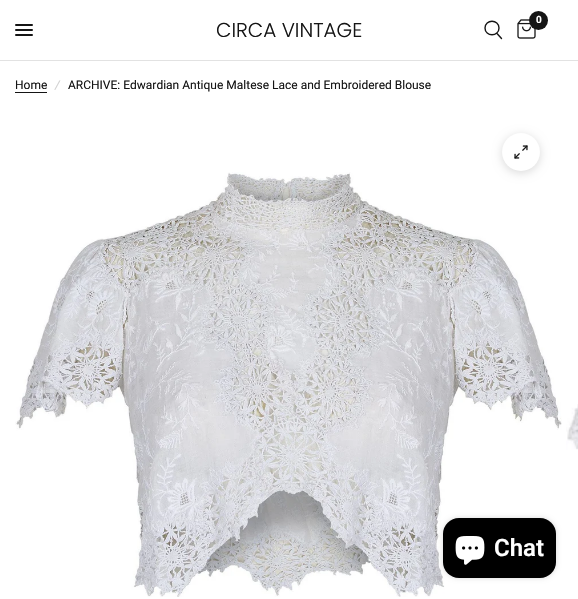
static SkFont makeFont(const char* family, int weight, float size, bool italic = false) {
  SkFontStyle style(weight, SkFontStyle::kNormal_Width,
    italic ? SkFontStyle::kItalic_Slant : SkFontStyle::kUpright_Slant);
  SkFont result(fontMgr->matchFamilyStyle(family, style), size);
  result.setSubpixel(true);
  return result;
}

static void text(SkCanvas* c, const char* s, float x, float y, const SkFont& font, SkColor color) {
  SkPaint ink(SkColor4f::FromColor(color));
  ink.setAntiAlias(true);
  c->drawString(s, x, y, font, ink);
}

static void box(SkCanvas* c, float l, float t, float r, float b, SkColor color) {
  SkPaint ink(SkColor4f::FromColor(color));
  ink.setAntiAlias(true);
  c->drawRect(SkRect::MakeLTRB(l, t, r, b), ink);
}

static void roundBox(SkCanvas* c, float l, float t, float r, float b, float radius, SkColor color) {
  SkPaint ink(SkColor4f::FromColor(color));
  ink.setAntiAlias(true);
  c->drawRoundRect(SkRect::MakeLTRB(l, t, r, b), radius, radius, ink);
}

static void picture(SkCanvas* c, const char* path, float l, float t, float r, float b) {
  auto image = SkImages::DeferredFromEncodedData(SkData::MakeFromFileName(path));
  c->drawImageRect(image, SkRect::MakeLTRB(l, t, r, b), SkSamplingOptions());
}

void draw(SkCanvas* c) {
  SkPaint paint;
  paint.setAntiAlias(true);
  c->clear(0xffffffff);
  box(c, 0, 60, 578, 61, 0xffe2e2e2);
  paint.setStyle(SkPaint::kStroke_Style);
  paint.setStrokeWidth(1.4f);
  paint.setStrokeCap(SkPaint::kRound_Cap);
  paint.setStrokeJoin(SkPaint::kRound_Join);
  paint.setColor(0xff151515);
  c->drawPath(SkPathBuilder().moveTo(497, 33.5f).lineTo(501.5f, 38.5f).moveTo(499, 28).cubicTo(499, 37, 485, 37, 485, 28).cubicTo(485, 19, 499, 19, 499, 28).close().detach(), paint);
  picture(c, "img_01.png", 517, 19, 536, 39);
  paint.setStyle(SkPaint::kFill_Style);
  c->drawCircle(538.5f, 20.5f, 9.5f, paint);
  SkFont face1 = makeFont("Roboto", 700, 10);
  text(c, "0", 536, 23, face1, 0xffffffff);
  roundBox(c, 15, 24, 33, 26, 1, 0xff151515);
  roundBox(c, 15, 29, 33, 31, 1, 0xff151515);
  roundBox(c, 15, 34, 33, 36, 1, 0xff151515);
  SkFont face2 = makeFont("Poppins", 300, 20);
  text(c, "CIRCA VINTAGE", 216, 37, face2, 0xff151515);
  SkFont face3 = makeFont("Roboto", 400, 12);
  text(c, "Home", 15, 89, face3, 0xff151515);
  box(c, 15, 92, 47, 93, 0xff151515);
  SkFont face4 = makeFont("Roboto", 400, 12, true);
  text(c, "/", 55, 89, face4, 0xffd0d0d0);
  text(c, "ARCHIVE: Edwardian Antique Maltese Lace and Embroidered Blouse", 68, 89, face3, 0xff151515);
  picture(c, "img_03.png", 15, 172, 562, 597);
  paint.setColor(0x26000000);
  paint.setMaskFilter(SkMaskFilter::MakeBlur(kNormal_SkBlurStyle, 5));
  c->drawRoundRect(SkRect::MakeLTRB(502, 135, 540, 173), 19, 19, paint);
  paint.setMaskFilter(nullptr);
  paint.setColor(0xffffffff);
  c->drawCircle(521, 152, 19, paint);
  picture(c, "img_02.png", 514, 145, 528, 159);
  picture(c, "img_04.png", 566, 404, 578, 450);
  paint.setColor(0x26000000);
  paint.setMaskFilter(SkMaskFilter::MakeBlur(kNormal_SkBlurStyle, 2.5f));
  c->drawRoundRect(SkRect::MakeLTRB(443, 518, 556, 578), 16, 16, paint);
  paint.setMaskFilter(nullptr);
  roundBox(c, 443, 518, 556, 578, 16, 0xff000000);
  picture(c, "img_05.png", 455, 536, 485, 565);
  SkFont face5 = makeFont("Roboto", 600, 24);
  text(c, "Chat", 494, 556, face5, 0xffffffff);
}
